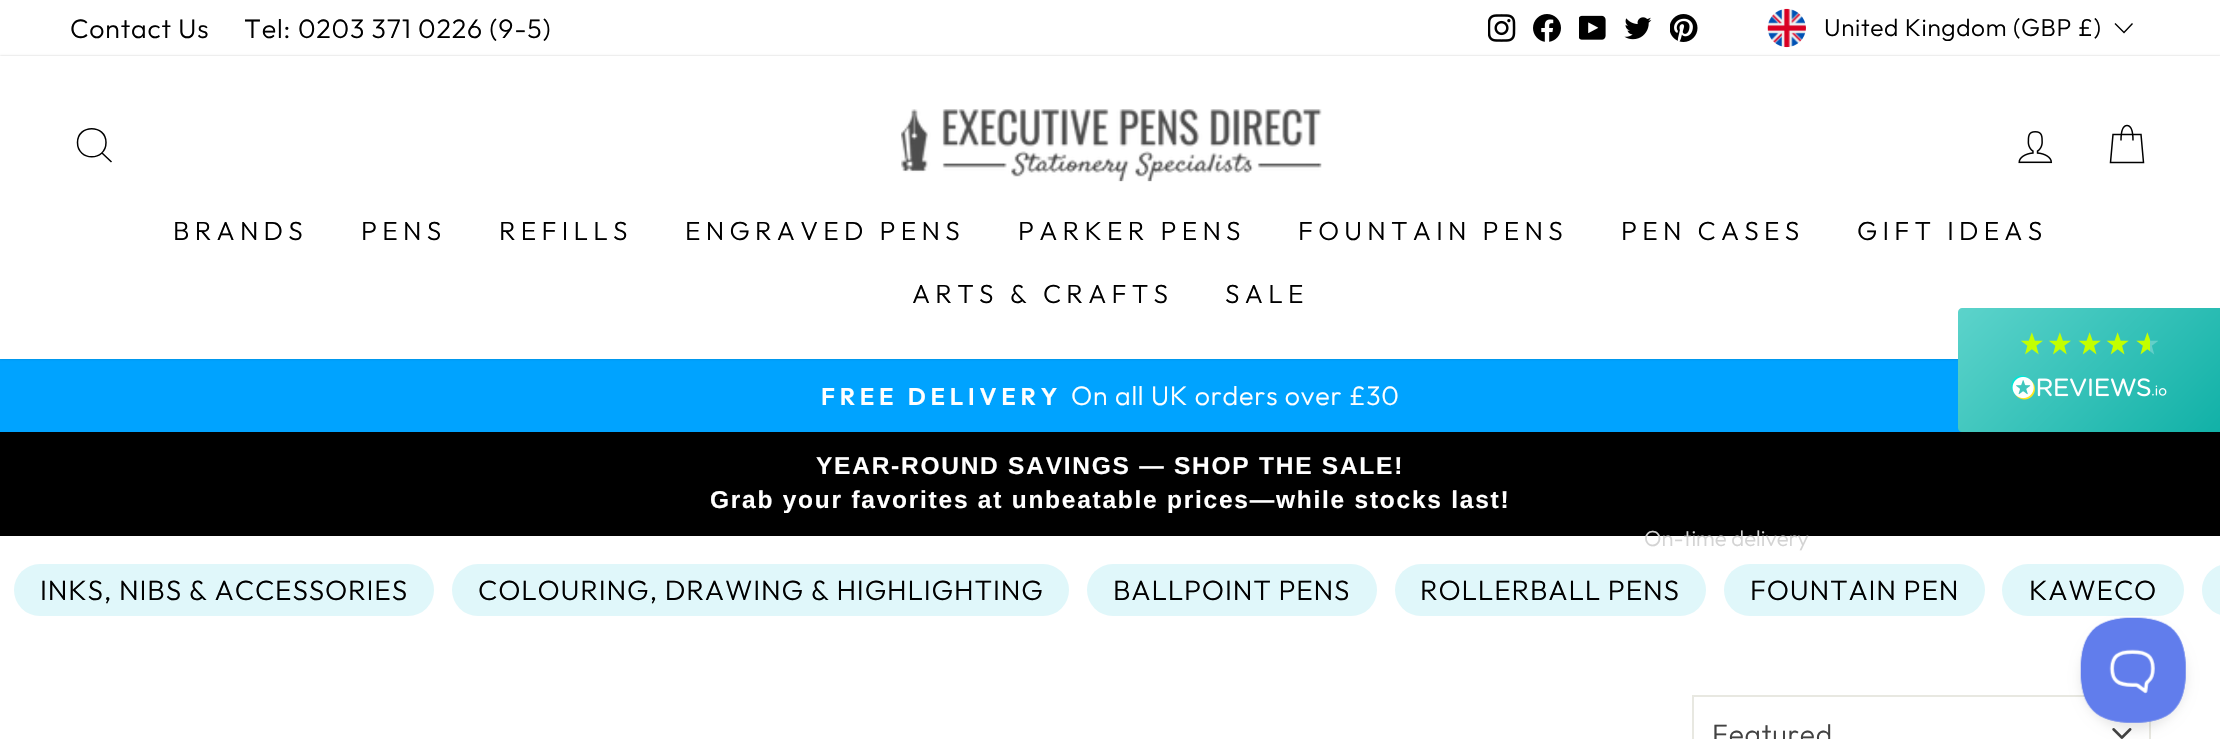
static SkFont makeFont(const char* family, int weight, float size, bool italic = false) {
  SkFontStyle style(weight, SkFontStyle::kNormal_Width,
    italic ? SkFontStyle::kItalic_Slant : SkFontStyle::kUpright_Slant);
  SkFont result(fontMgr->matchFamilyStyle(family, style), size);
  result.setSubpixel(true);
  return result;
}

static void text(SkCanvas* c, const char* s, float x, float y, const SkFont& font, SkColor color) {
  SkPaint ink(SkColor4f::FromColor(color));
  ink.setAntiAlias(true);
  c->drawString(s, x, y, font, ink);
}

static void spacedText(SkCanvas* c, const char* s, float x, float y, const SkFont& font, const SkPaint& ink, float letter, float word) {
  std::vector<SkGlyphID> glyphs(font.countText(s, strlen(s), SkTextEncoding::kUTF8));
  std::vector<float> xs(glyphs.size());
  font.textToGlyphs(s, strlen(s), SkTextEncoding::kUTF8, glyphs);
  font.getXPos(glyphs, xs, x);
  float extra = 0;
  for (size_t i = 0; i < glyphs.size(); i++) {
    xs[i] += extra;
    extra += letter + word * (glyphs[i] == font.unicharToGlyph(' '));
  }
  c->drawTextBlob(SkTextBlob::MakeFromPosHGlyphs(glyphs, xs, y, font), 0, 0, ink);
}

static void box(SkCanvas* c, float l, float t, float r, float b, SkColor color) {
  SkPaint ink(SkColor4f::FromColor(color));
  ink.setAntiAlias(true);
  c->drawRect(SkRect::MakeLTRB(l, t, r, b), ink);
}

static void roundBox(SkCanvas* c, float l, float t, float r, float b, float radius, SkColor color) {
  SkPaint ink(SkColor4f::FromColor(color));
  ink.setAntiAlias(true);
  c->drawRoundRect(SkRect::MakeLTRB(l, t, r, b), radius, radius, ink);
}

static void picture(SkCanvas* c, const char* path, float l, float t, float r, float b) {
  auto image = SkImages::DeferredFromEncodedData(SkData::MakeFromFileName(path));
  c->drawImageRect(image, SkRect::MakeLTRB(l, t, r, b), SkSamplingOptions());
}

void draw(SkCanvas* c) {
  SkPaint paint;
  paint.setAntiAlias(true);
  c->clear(0xffffffff);
  SkFont face1 = makeFont("Outfit", 300, 26.75f);
  paint.setColor(0xff000000);
  spacedText(c, "Contact Us", 70, 38, face1, paint, 0.8f, 0);
  spacedText(c, "Tel: 0203 371 0226 (9-5)", 244, 38, face1, paint, 0.8f, 0);
  picture(c, "img_01.png", 1488, 14, 1516, 42);
  picture(c, "img_02.png", 1533, 14, 1561, 42);
  picture(c, "img_03.png", 1579, 15, 1606, 40);
  picture(c, "img_04.png", 1624, 17, 1652, 40);
  picture(c, "img_05.png", 1670, 14, 1698, 42);
  picture(c, "img_06.png", 1767, 8, 1806, 48);
  SkFont face2 = makeFont("Outfit", 300, 24.5f);
  spacedText(c, "United Kingdom (GBP £)", 1824, 36, face2, paint, 0.6f, 0);
  paint.setStyle(SkPaint::kStroke_Style);
  paint.setStrokeWidth(1.4f);
  c->drawPath(SkPathBuilder().moveTo(2115, 23.5f).lineTo(2124, 32.5f).lineTo(2132.5f, 23.5f).detach(), paint);
  box(c, 0, 359, 1962, 432, 0xff00a3ff);
  paint.setStyle(SkPaint::kFill_Style);
  paint.setColor(0x33000000);
  paint.setMaskFilter(SkMaskFilter::MakeBlur(kNormal_SkBlurStyle, 1));
  c->drawRect(SkRect::MakeLTRB(0, 56, 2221, 359), paint);
  paint.setMaskFilter(nullptr);
  box(c, 0, 56, 2220, 359, 0xffffffff);
  paint.setStyle(SkPaint::kStroke_Style);
  paint.setStrokeWidth(1.5f);
  paint.setColor(0xff000000);
  c->drawPath(SkPathBuilder().moveTo(106, 142.5f).cubicTo(106, 161.5f, 77.5f, 161.5f, 77.5f, 142.5f).cubicTo(77.5f, 124, 106, 124, 106, 142.5f).close().moveTo(111.5f, 162).lineTo(102, 153).detach(), paint);
  picture(c, "img_07.png", 901, 109, 1322, 182);
  picture(c, "img_08.png", 2018, 131, 2053, 164);
  c->drawPath(SkPathBuilder().moveTo(2121, 140.5f).cubicTo(2121, 128.5f, 2123.5f, 125.5f, 2127, 125.5f).cubicTo(2130.5f, 125.5f, 2133, 128.5f, 2133, 140.5f).moveTo(2113, 134.5f).lineTo(2141, 134.5f).lineTo(2143.5f, 162.5f).lineTo(2110.5f, 162.5f).close().detach(), paint);
  SkFont face3 = makeFont("Outfit", 300, 26.25f);
  paint.setStyle(SkPaint::kFill_Style);
  spacedText(c, "BRANDS", 173, 240, face3, paint, 5.25f, 0);
  spacedText(c, "PENS", 361, 240, face3, paint, 5.25f, 0);
  spacedText(c, "REFILLS", 499, 240, face3, paint, 5.25f, 0);
  spacedText(c, "ENGRAVED PENS", 685, 240, face3, paint, 5.25f, 0);
  spacedText(c, "PARKER PENS", 1018, 240, face3, paint, 5.25f, 0);
  spacedText(c, "FOUNTAIN PENS", 1298, 240, face3, paint, 5.25f, 0);
  spacedText(c, "PEN CASES", 1621, 240, face3, paint, 5.25f, 0);
  spacedText(c, "GIFT IDEAS", 1857, 240, face3, paint, 5.25f, 0);
  spacedText(c, "ARTS & CRAFTS", 912, 303, face3, paint, 5.25f, 0);
  spacedText(c, "SALE", 1225, 303, face3, paint, 5.25f, 0);
  SkFont face4 = makeFont("Outfit", 600, 24.1f);
  paint.setColor(0xffffffff);
  spacedText(c, "FREE DELIVERY", 821, 405, face4, paint, 4.75f, 0);
  spacedText(c, "On all UK orders over £30", 1071, 405, face1, paint, 0.8f, 0);
  box(c, 0, 432, 2220, 536, 0xff000000);
  SkFont face5 = makeFont("Liberation Sans", 700, 24.5f);
  spacedText(c, "YEAR-ROUND SAVINGS — SHOP THE SALE!", 816, 474, face5, paint, 1.75f, 0);
  spacedText(c, "Grab your favorites at unbeatable prices—while stocks last!", 710, 508, face5, paint, 1.75f, 0);
  roundBox(c, 14, 564, 434, 616, 26, 0xffe0f7fa);
  SkFont face6 = makeFont("Outfit", 300, 28);
  paint.setColor(0xff000000);
  spacedText(c, "INKS, NIBS & ACCESSORIES", 40, 600, face6, paint, 0.8f, 0);
  roundBox(c, 452, 564, 1069, 616, 26, 0xffe0f7fa);
  spacedText(c, "COLOURING, DRAWING & HIGHLIGHTING", 478, 600, face6, paint, 0.8f, 0);
  roundBox(c, 1087, 564, 1377, 616, 26, 0xffe0f7fa);
  spacedText(c, "BALLPOINT PENS", 1113, 600, face6, paint, 0.8f, 0);
  roundBox(c, 1395, 564, 1706, 616, 26, 0xffe0f7fa);
  spacedText(c, "ROLLERBALL PENS", 1420, 600, face6, paint, 0.8f, 0);
  roundBox(c, 1724, 564, 1985, 616, 26, 0xffe0f7fa);
  spacedText(c, "FOUNTAIN PEN", 1750, 600, face6, paint, 0.8f, 0);
  roundBox(c, 2002, 564, 2184, 616, 26, 0xffe0f7fa);
  spacedText(c, "KAWECO", 2029, 600, face6, paint, 0.8f, 0);
  paint.setColor(0xffe0f7fa);
  c->drawPath(SkPathBuilder().moveTo(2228, 564).lineTo(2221, 564).lineTo(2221, 616).lineTo(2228, 616).cubicTo(2213.5f, 616, 2202, 604.5f, 2202, 590).cubicTo(2202, 575.5f, 2213.5f, 564, 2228, 564).close().detach(), paint);
  picture(c, "img_09.png", 2112, 728, 2132, 739);
  paint.setStyle(SkPaint::kStroke_Style);
  paint.setStrokeWidth(2);
  paint.setColor(0xffe8e8e1);
  c->drawRect(SkRect::MakeLTRB(1693, 696, 2150, 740), paint);
  paint.setStyle(SkPaint::kFill_Style);
  paint.setColor(0xff424242);
  spacedText(c, "Featured", 1712, 744, face6, paint, 0.75f, 0);
  {
    const SkColor colors[] = {0xff5cd3cb, 0xff11b1a7};
    const float stops[] = {0, 1};
    const SkPoint ends[] = {{1993, 274}, {2186, 467}};
    paint.setShader(SkGradientShader::MakeLinear(ends, colors, stops, 2, SkTileMode::kClamp));
    paint.setAlpha(255);
  }
  c->drawPath(SkPathBuilder().moveTo(1962, 308).lineTo(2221, 308).lineTo(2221, 432).lineTo(1962, 432).cubicTo(1960, 432, 1958, 430, 1958, 428).lineTo(1958, 312).cubicTo(1958, 310, 1960, 308, 1962, 308).close().detach(), paint);
  picture(c, "img_10.png", 2020, 332, 2043, 355);
  picture(c, "img_11.png", 2048, 332, 2071, 355);
  picture(c, "img_12.png", 2078, 332, 2101, 355);
  picture(c, "img_13.png", 2106, 332, 2129, 355);
  picture(c, "img_14.png", 2136, 332, 2158, 355);
  picture(c, "img_15.png", 2011, 375, 2167, 400);
  SkFont face7 = makeFont("Outfit", 300, 22);
  text(c, "On-time delivery", 1644, 546, face7, 0xffd3d3d3);
  paint.setShader(nullptr);
  paint.setColor(0x1a000000);
  paint.setMaskFilter(SkMaskFilter::MakeBlur(kNormal_SkBlurStyle, 6));
  c->drawRoundRect(SkRect::MakeLTRB(2081, 625, 2186, 730), 52.5f, 52.5f, paint);
  paint.setMaskFilter(nullptr);
  picture(c, "img_16.png", 2080, 617, 2186, 723);
}
